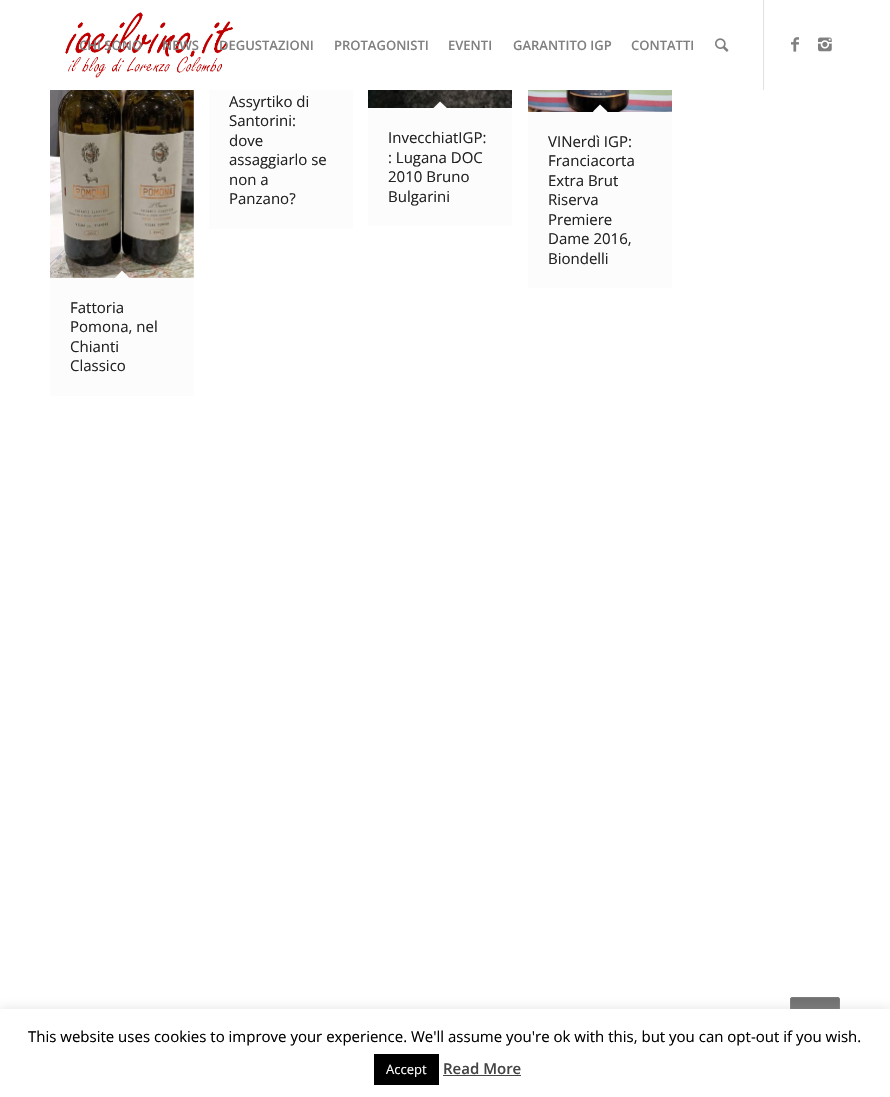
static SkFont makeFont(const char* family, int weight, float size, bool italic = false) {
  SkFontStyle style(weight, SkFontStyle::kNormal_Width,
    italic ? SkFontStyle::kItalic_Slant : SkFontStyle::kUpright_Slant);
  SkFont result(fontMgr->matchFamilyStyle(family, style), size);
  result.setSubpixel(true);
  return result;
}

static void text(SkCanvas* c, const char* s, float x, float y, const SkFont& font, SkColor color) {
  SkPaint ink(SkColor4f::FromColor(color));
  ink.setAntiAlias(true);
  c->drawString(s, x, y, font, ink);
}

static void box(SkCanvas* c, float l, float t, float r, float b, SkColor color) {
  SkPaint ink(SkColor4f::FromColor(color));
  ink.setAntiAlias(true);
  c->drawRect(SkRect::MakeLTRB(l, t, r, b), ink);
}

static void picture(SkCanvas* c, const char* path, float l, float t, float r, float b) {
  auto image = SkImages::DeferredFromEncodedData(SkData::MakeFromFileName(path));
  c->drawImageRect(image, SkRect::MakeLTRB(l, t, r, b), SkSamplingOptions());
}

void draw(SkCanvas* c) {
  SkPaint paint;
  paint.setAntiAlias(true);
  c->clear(0xffffffff);
  picture(c, "img_01.png", 65, 12, 233, 78);
  box(c, 763, 0, 764, 90, 0xffe1e1e1);
  SkFont face1 = makeFont("Open Sans", 600, 13);
  text(c, "CHI SONO", 79, 50, face1, 0xff808080);
  text(c, "NEWS", 162, 50, face1, 0xff808080);
  text(c, "DEGUSTAZIONI", 219, 50, face1, 0xff808080);
  text(c, "PROTAGONISTI", 334, 50, face1, 0xff808080);
  text(c, "EVENTI", 448, 50, face1, 0xff808080);
  text(c, "GARANTITO IGP", 513, 50, face1, 0xff808080);
  text(c, "CONTATTI", 631, 50, face1, 0xff808080);
  picture(c, "img_02.png", 715, 38, 729, 52);
  picture(c, "img_03.png", 791, 37, 799, 52);
  picture(c, "img_04.png", 818, 37, 832, 52);
  box(c, 209, 90, 353, 229, 0xfffcfcfc);
  SkFont face2 = makeFont("Open Sans", 400, 15);
  text(c, "Assyrtiko di", 229, 107, face2, 0xff222222);
  text(c, "Santorini:", 229, 126, face2, 0xff222222);
  text(c, "dove", 229, 146, face2, 0xff222222);
  text(c, "assaggiarlo se", 229, 165, face2, 0xff222222);
  text(c, "non a", 229, 185, face2, 0xff222222);
  text(c, "Panzano?", 229, 204, face2, 0xff222222);
  picture(c, "img_05.png", 368, 90, 512, 108);
  box(c, 368, 108, 512, 226, 0xfffcfcfc);
  paint.setColor(0xfffcfcfc);
  c->drawPath(SkPathBuilder().moveTo(440, 101.5f).lineTo(447.5f, 108.5f).lineTo(440, 115.5f).lineTo(433, 108.5f).close().detach(), paint);
  text(c, "InvecchiatIGP:", 388, 143, face2, 0xff222222);
  text(c, ": Lugana DOC", 388, 163, face2, 0xff222222);
  text(c, "2010 Bruno", 388, 182, face2, 0xff222222);
  text(c, "Bulgarini", 388, 202, face2, 0xff222222);
  picture(c, "img_06.png", 528, 90, 672, 112);
  box(c, 528, 112, 672, 288, 0xfffcfcfc);
  c->drawPath(SkPathBuilder().moveTo(600, 104.5f).lineTo(607.5f, 111.5f).lineTo(600, 118.5f).lineTo(593, 111.5f).close().detach(), paint);
  text(c, "VINerdì IGP:", 548, 147, face2, 0xff222222);
  text(c, "Franciacorta", 548, 166, face2, 0xff222222);
  text(c, "Extra Brut", 548, 186, face2, 0xff222222);
  text(c, "Riserva", 548, 205, face2, 0xff222222);
  text(c, "Premiere", 548, 225, face2, 0xff222222);
  text(c, "Dame 2016,", 548, 244, face2, 0xff222222);
  text(c, "Biondelli", 548, 264, face2, 0xff222222);
  picture(c, "img_07.png", 50, 90, 194, 278);
  box(c, 50, 278, 194, 396, 0xfffcfcfc);
  c->drawPath(SkPathBuilder().moveTo(122, 270.5f).lineTo(129.5f, 278).lineTo(122, 285).lineTo(115, 278).close().detach(), paint);
  text(c, "Fattoria", 70, 313, face2, 0xff222222);
  text(c, "Pomona, nel", 70, 332, face2, 0xff222222);
  text(c, "Chianti", 70, 352, face2, 0xff222222);
  text(c, "Classico", 70, 371, face2, 0xff222222);
  paint.setColor(0xff707070);
  c->drawRoundRect(SkRect::MakeLTRB(790.5f, 997.5f, 839.5f, 1046.5f), 1.5f, 1.5f, paint);
  paint.setStyle(SkPaint::kStroke_Style);
  paint.setStrokeWidth(1);
  paint.setColor(0xff7c7c7c);
  c->drawRoundRect(SkRect::MakeLTRB(790.5f, 997.5f, 839.5f, 1046.5f), 1.5f, 1.5f, paint);
  paint.setStyle(SkPaint::kFill_Style);
  paint.setColor(0x4dacabab);
  paint.setMaskFilter(SkMaskFilter::MakeBlur(kNormal_SkBlurStyle, 5));
  c->drawRect(SkRect::MakeLTRB(0, 1008, 890, 1096), paint);
  paint.setMaskFilter(nullptr);
  box(c, 0, 1009, 890, 1097, 0xffffffff);
  text(c, "This website uses cookies to improve your experience. We'll assume you're ok with this, but you can opt-out if you wish.", 28, 1042, face2, 0xff000000);
  box(c, 374, 1054, 439, 1085, 0xff000000);
  SkFont face3 = makeFont("Open Sans", 400, 13);
  text(c, "Accept", 386, 1074, face3, 0xffffffff);
  SkFont face4 = makeFont("Open Sans", 600, 15);
  text(c, "Read More", 443, 1074, face4, 0xff444444);
  box(c, 443, 1075, 521, 1076, 0xff444444);
}
